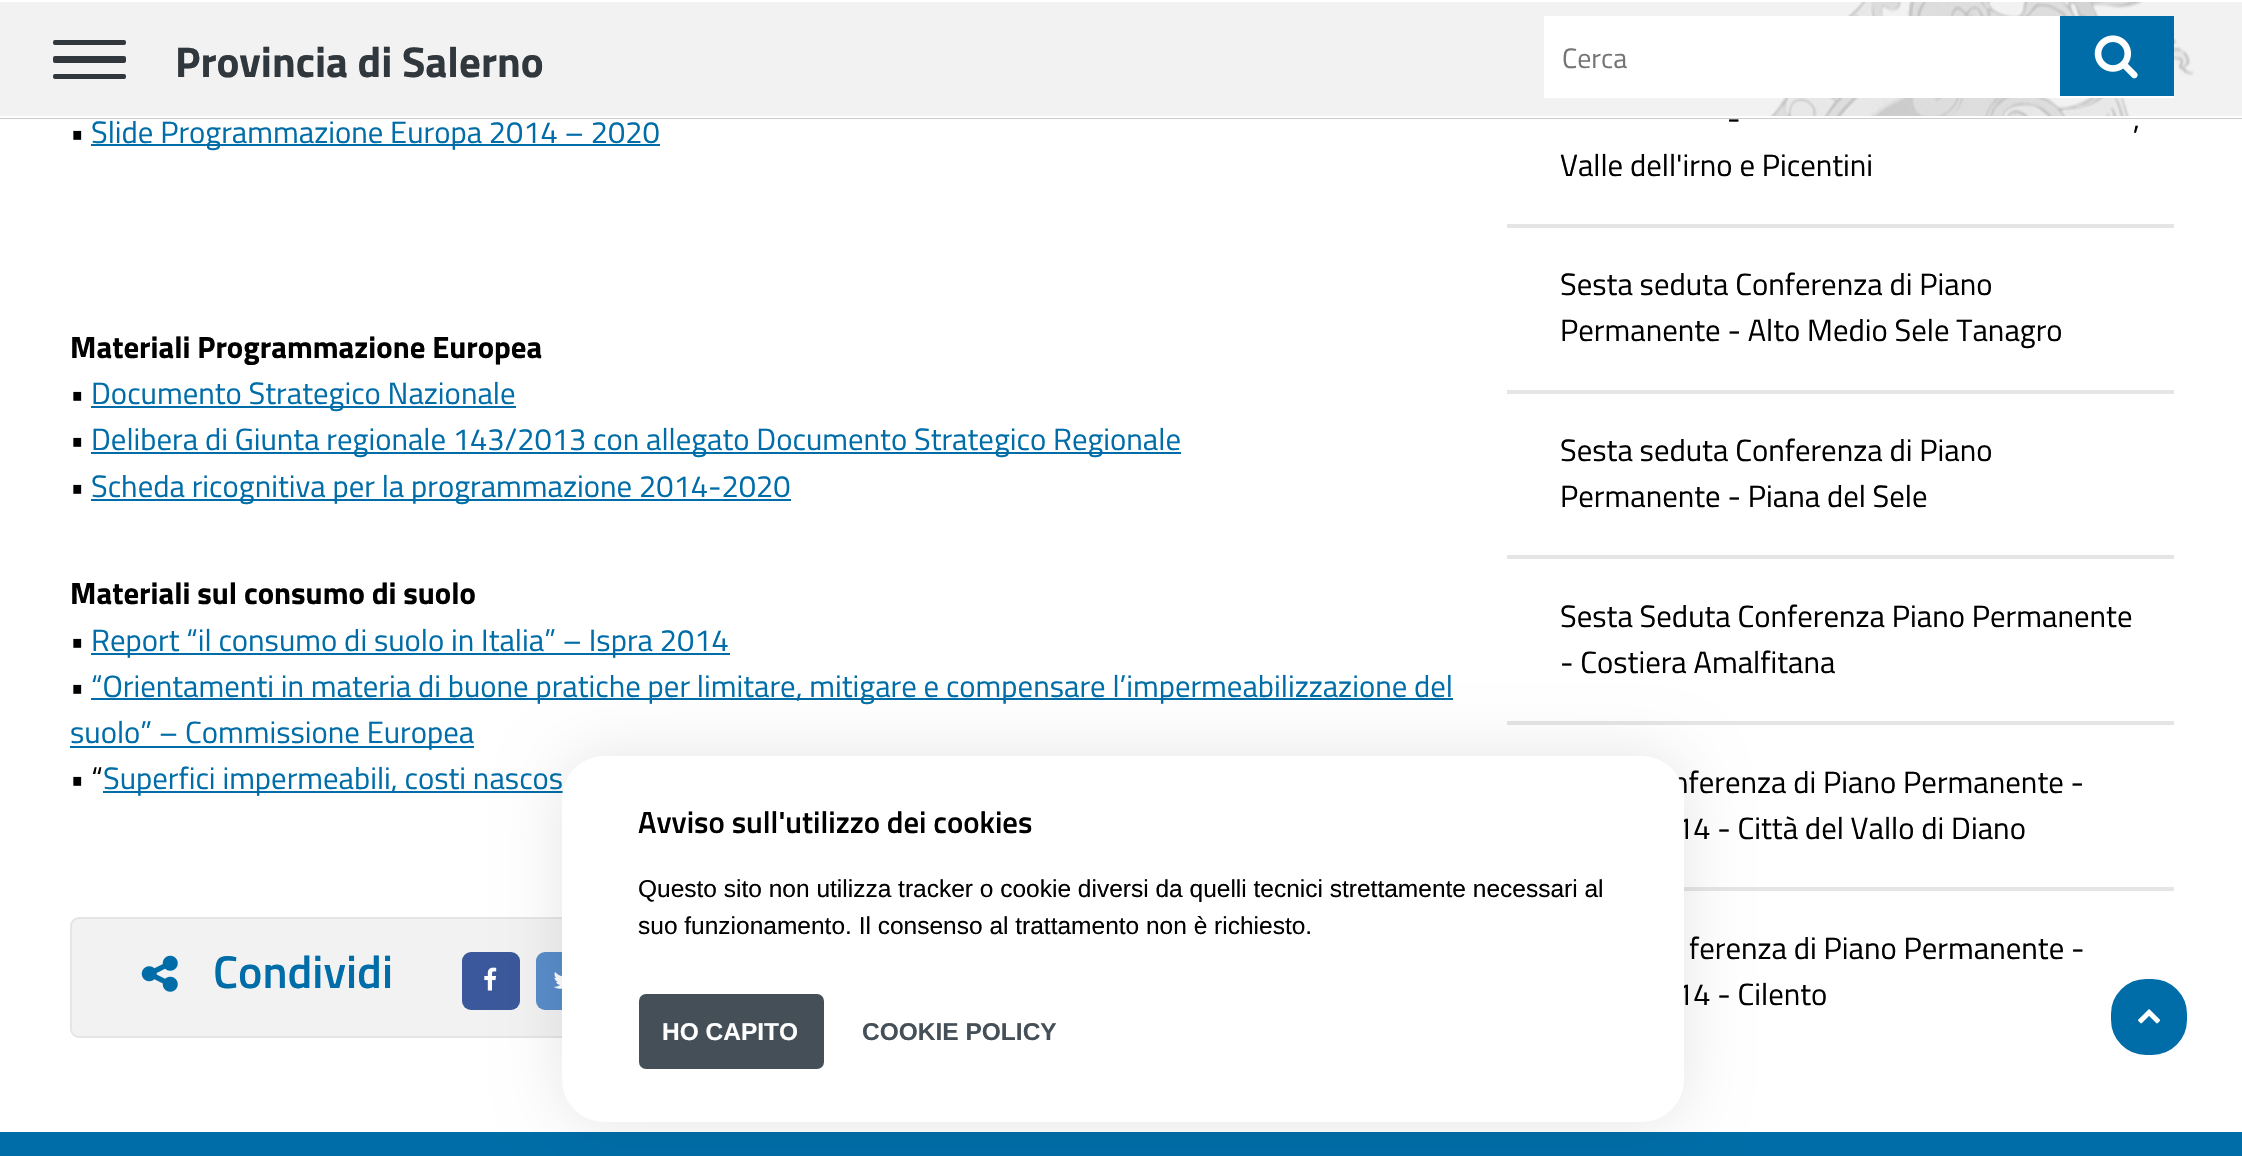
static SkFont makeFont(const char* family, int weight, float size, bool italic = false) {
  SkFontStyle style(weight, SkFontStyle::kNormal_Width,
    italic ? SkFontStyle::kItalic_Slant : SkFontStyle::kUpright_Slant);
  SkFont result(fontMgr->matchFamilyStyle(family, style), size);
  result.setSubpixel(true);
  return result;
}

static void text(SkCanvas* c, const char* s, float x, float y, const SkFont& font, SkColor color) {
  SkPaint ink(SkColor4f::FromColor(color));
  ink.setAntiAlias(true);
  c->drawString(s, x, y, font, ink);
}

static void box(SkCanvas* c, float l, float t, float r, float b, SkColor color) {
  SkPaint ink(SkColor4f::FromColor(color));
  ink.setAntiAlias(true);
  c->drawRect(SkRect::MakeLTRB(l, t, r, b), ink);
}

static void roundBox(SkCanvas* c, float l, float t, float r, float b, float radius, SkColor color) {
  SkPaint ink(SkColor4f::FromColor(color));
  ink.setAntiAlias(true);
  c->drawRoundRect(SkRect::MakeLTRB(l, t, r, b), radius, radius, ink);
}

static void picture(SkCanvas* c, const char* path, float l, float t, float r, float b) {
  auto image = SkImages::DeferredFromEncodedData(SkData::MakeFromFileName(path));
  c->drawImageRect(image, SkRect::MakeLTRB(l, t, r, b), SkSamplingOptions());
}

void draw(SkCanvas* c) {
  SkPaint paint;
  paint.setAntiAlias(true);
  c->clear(0xffffffff);
  box(c, 0, 118, 2242, 119, 0xffcccccc);
  box(c, 0, 2, 2242, 116, 0xfff2f2f2);
  roundBox(c, 53, 40, 126, 45, 2, 0xff30373d);
  roundBox(c, 53, 56, 126, 63, 2, 0xff30373d);
  roundBox(c, 53, 74, 126, 79, 2, 0xff30373d);
  picture(c, "img_01.png", 1770, 2, 2194, 116);
  SkFont face1 = makeFont("Titillium Web", 700, 43.1f);
  text(c, "Provincia di Salerno", 175, 77, face1, 0xff30373d);
  box(c, 1544, 16, 2174, 98, 0xffffffff);
  SkFont face2 = makeFont("Titillium Web", 400, 28);
  text(c, "Cerca", 1562, 68, face2, 0xff757575);
  box(c, 2060, 16, 2174, 96, 0xff006da8);
  picture(c, "img_02.png", 2094, 35, 2138, 79);
  paint.setColor(0xff006da8);
  c->drawRoundRect(SkRect::MakeLTRB(2109, 977, 2189, 1057), 37, 37, paint);
  paint.setStyle(SkPaint::kStroke_Style);
  paint.setStrokeWidth(4);
  paint.setColor(0xffffffff);
  c->drawRoundRect(SkRect::MakeLTRB(2109, 977, 2189, 1057), 37, 37, paint);
  picture(c, "img_03.png", 2138, 1009, 2161, 1024);
  SkFont face3 = makeFont("Titillium Web", 400, 30.8f);
  text(c, "•", 70, 143, face3, 0xff000000);
  box(c, 91, 144, 660, 146, 0xff006da8);
  text(c, "Slide Programmazione Europa 2014 – 2020", 91, 143, face3, 0xff006da8);
  SkFont face4 = makeFont("Titillium Web", 700, 30.8f);
  text(c, "Materiali Programmazione Europea", 70, 358, face4, 0xff000000);
  text(c, "•", 70, 404, face3, 0xff000000);
  box(c, 91, 406, 516, 408, 0xff006da8);
  text(c, "Documento Strategico Nazionale", 91, 404, face3, 0xff006da8);
  text(c, "•", 70, 450, face3, 0xff000000);
  box(c, 91, 452, 1181, 454, 0xff006da8);
  text(c, "Delibera di Giunta regionale 143/2013 con allegato Documento Strategico Regionale", 91, 450, face3, 0xff006da8);
  text(c, "•", 70, 497, face3, 0xff000000);
  box(c, 91, 499, 791, 501, 0xff006da8);
  text(c, "Scheda ricognitiva per la programmazione 2014-2020", 91, 497, face3, 0xff006da8);
  text(c, "Materiali sul consumo di suolo", 70, 604, face4, 0xff000000);
  text(c, "•", 70, 651, face3, 0xff000000);
  box(c, 91, 653, 730, 655, 0xff006da8);
  text(c, "Report “il consumo di suolo in Italia” – Ispra 2014", 91, 651, face3, 0xff006da8);
  text(c, "•", 70, 697, face3, 0xff000000);
  box(c, 91, 698, 1453, 700, 0xff006da8);
  text(c, "“Orientamenti in materia di buone pratiche per limitare, mitigare e compensare l’impermeabilizzazione del", 91, 697, face3, 0xff006da8);
  box(c, 70, 746, 474, 748, 0xff006da8);
  text(c, "suolo” – Commissione Europea", 70, 743, face3, 0xff006da8);
  text(c, "• “", 70, 789, face3, 0xff000000);
  box(c, 103, 791, 563, 793, 0xff006da8);
  text(c, "Superfici impermeabili, costi nascos", 103, 789, face3, 0xff006da8);
  paint.setStyle(SkPaint::kFill_Style);
  paint.setColor(0xfff2f2f2);
  c->drawRoundRect(SkRect::MakeLTRB(71, 918, 1453, 1037), 8, 8, paint);
  paint.setStyle(SkPaint::kStroke_Style);
  paint.setStrokeWidth(2);
  paint.setColor(0xffe5e5e5);
  c->drawRoundRect(SkRect::MakeLTRB(71, 918, 1453, 1037), 8, 8, paint);
  picture(c, "img_04.png", 141, 955, 178, 992);
  SkFont face5 = makeFont("Titillium Web", 600, 46);
  text(c, "Condividi", 213, 988, face5, 0xff006da8);
  roundBox(c, 462, 952, 520, 1010, 9, 0xff3a589b);
  picture(c, "img_05.png", 484, 967, 497, 991);
  roundBox(c, 536, 952, 593, 1010, 9, 0xff598dca);
  picture(c, "img_06.png", 553, 972, 562, 989);
  text(c, "-", 1727, 129, face3, 0xff000000);
  text(c, ",", 2133, 129, face3, 0xff000000);
  text(c, "Valle dell'irno e Picentini", 1560, 176, face3, 0xff000000);
  box(c, 1507, 224, 2174, 228, 0xffe5e5e5);
  text(c, "Sesta seduta Conferenza di Piano", 1560, 295, face3, 0xff000000);
  text(c, "Permanente - Alto Medio Sele Tanagro", 1560, 341, face3, 0xff000000);
  box(c, 1507, 390, 2174, 394, 0xffe5e5e5);
  text(c, "Sesta seduta Conferenza di Piano", 1560, 461, face3, 0xff000000);
  text(c, "Permanente - Piana del Sele", 1560, 507, face3, 0xff000000);
  box(c, 1507, 555, 2174, 559, 0xffe5e5e5);
  text(c, "Sesta Seduta Conferenza Piano Permanente", 1560, 627, face3, 0xff000000);
  text(c, "- Costiera Amalfitana", 1560, 673, face3, 0xff000000);
  box(c, 1507, 721, 2174, 725, 0xffe5e5e5);
  text(c, "nferenza di Piano Permanente -", 1672, 793, face3, 0xff000000);
  text(c, "14 - Città del Vallo di Diano", 1676, 839, face3, 0xff000000);
  box(c, 1684, 887, 2174, 891, 0xffe5e5e5);
  text(c, "ferenza di Piano Permanente -", 1689, 959, face3, 0xff000000);
  text(c, "14 - Cilento", 1676, 1005, face3, 0xff000000);
  box(c, 0, 1132, 2242, 1156, 0xff006da8);
  paint.setStyle(SkPaint::kFill_Style);
  paint.setColor(0x1a000000);
  paint.setMaskFilter(SkMaskFilter::MakeBlur(kNormal_SkBlurStyle, 31));
  c->drawRoundRect(SkRect::MakeLTRB(562, 756, 1684, 1122), 42, 42, paint);
  paint.setMaskFilter(nullptr);
  roundBox(c, 562, 756, 1684, 1122, 42, 0xffffffff);
  SkFont face6 = makeFont("Titillium Web", 600, 30.8f);
  text(c, "Avviso sull'utilizzo dei cookies", 638, 833, face6, 0xff000000);
  SkFont face7 = makeFont("Liberation Sans", 400, 24.5f);
  text(c, "Questo sito non utilizza tracker o cookie diversi da quelli tecnici strettamente necessari al", 638, 897, face7, 0xff000000);
  text(c, "suo funzionamento. Il consenso al trattamento non è richiesto.", 638, 934, face7, 0xff000000);
  roundBox(c, 639, 994, 824, 1069, 7, 0xff444f57);
  SkFont face8 = makeFont("Liberation Sans", 700, 24.5f);
  text(c, "HO CAPITO", 662, 1040, face8, 0xffffffff);
  text(c, "COOKIE POLICY", 862, 1040, face8, 0xff444f57);
}
